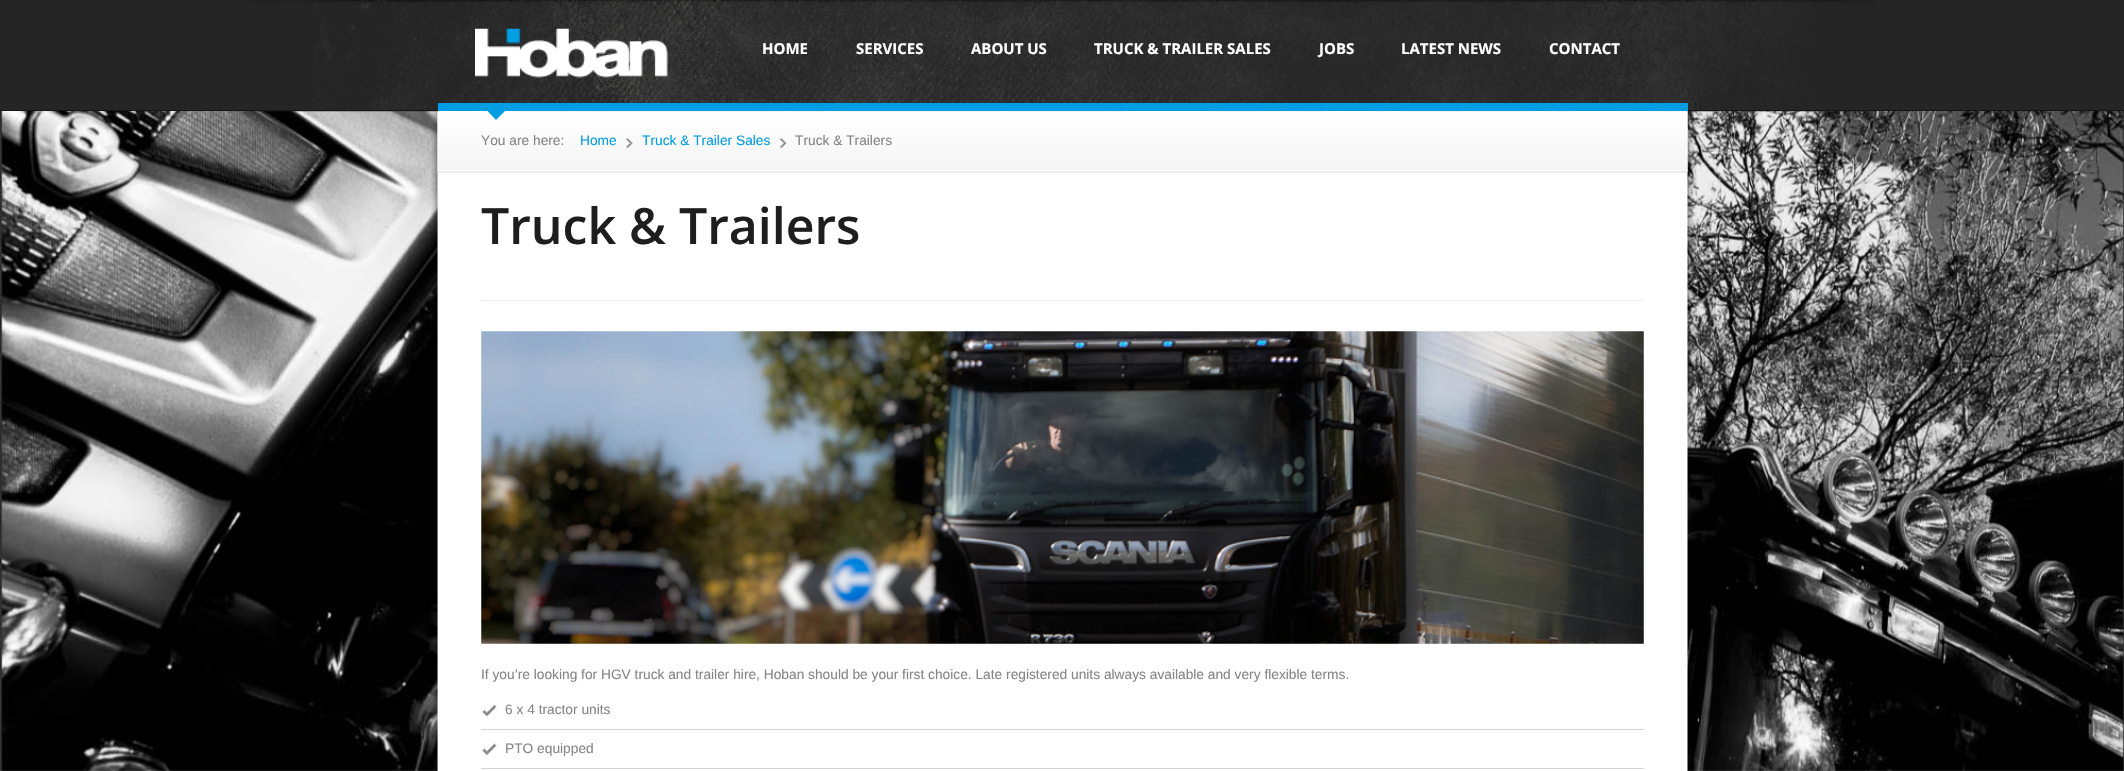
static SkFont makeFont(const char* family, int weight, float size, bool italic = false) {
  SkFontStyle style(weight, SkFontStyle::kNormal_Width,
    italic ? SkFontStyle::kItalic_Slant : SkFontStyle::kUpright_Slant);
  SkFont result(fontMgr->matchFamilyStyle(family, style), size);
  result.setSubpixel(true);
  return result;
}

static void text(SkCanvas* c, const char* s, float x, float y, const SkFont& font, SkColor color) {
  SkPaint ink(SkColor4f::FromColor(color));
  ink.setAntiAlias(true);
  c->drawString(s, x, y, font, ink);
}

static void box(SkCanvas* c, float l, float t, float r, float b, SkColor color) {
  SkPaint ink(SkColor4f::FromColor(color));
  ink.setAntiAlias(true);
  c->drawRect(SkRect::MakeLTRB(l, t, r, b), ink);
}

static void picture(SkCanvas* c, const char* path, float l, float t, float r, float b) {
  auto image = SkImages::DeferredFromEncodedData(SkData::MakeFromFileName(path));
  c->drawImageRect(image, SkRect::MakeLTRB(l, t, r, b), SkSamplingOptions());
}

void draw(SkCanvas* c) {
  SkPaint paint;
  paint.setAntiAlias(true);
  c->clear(0xffffffff);
  picture(c, "img_01.png", 0, 111, 2124, 771);
  box(c, 0, 0, 2124, 110, 0xff252525);
  picture(c, "img_02.png", 250, 0, 1875, 112);
  box(c, 0, 110, 2124, 111, 0xff161616);
  picture(c, "img_03.png", 475, 28, 668, 78);
  SkFont face1 = makeFont("Open Sans", 700, 15);
  text(c, "HOME", 762, 54, face1, 0xffffffff);
  text(c, "SERVICES", 856, 54, face1, 0xffffffff);
  text(c, "ABOUT US", 971, 54, face1, 0xffffffff);
  text(c, "TRUCK & TRAILER SALES", 1094, 54, face1, 0xffffffff);
  text(c, "JOBS", 1319, 54, face1, 0xffffffff);
  text(c, "LATEST NEWS", 1401, 54, face1, 0xffffffff);
  text(c, "CONTACT", 1549, 54, face1, 0xffffffff);
  picture(c, "img_04.png", 431, 111, 1694, 771);
  picture(c, "img_05.png", 437, 111, 1688, 173);
  box(c, 438, 103, 1688, 111, 0xff039de3);
  paint.setColor(0xff039de3);
  c->drawPath(SkPathBuilder().moveTo(487.5f, 111).lineTo(505, 111).lineTo(496, 120).close().detach(), paint);
  SkFont face2 = makeFont("Liberation Sans", 400, 13.75f);
  text(c, "You are here:", 481, 145, face2, 0xff858585);
  text(c, "Home", 580, 145, face2, 0xff039de3);
  picture(c, "img_06.png", 626, 138, 633, 148);
  text(c, "Truck & Trailer Sales", 642, 145, face2, 0xff039de3);
  picture(c, "img_07.png", 779, 138, 787, 148);
  text(c, "Truck & Trailers", 795, 145, face2, 0xff858585);
  SkFont face3 = makeFont("Open Sans", 600, 50);
  text(c, "Truck & Trailers", 481, 244, face3, 0xff1e1e1e);
  box(c, 481, 300, 1644, 301, 0xffefefef);
  picture(c, "img_08.png", 481, 331, 1644, 644);
  text(c, "If you’re looking for HGV truck and trailer hire, Hoban should be your first choice. Late registered units always available and very flexible terms.", 481, 679, face2, 0xff858585);
  picture(c, "img_09.png", 482, 705, 497, 717);
  box(c, 481, 729, 1644, 730, 0xffd2d2d2);
  text(c, "6 x 4 tractor units", 505, 714, face2, 0xff858585);
  picture(c, "img_10.png", 482, 743, 497, 755);
  box(c, 481, 768, 1644, 769, 0xffd2d2d2);
  text(c, "PTO equipped", 505, 753, face2, 0xff858585);
}
